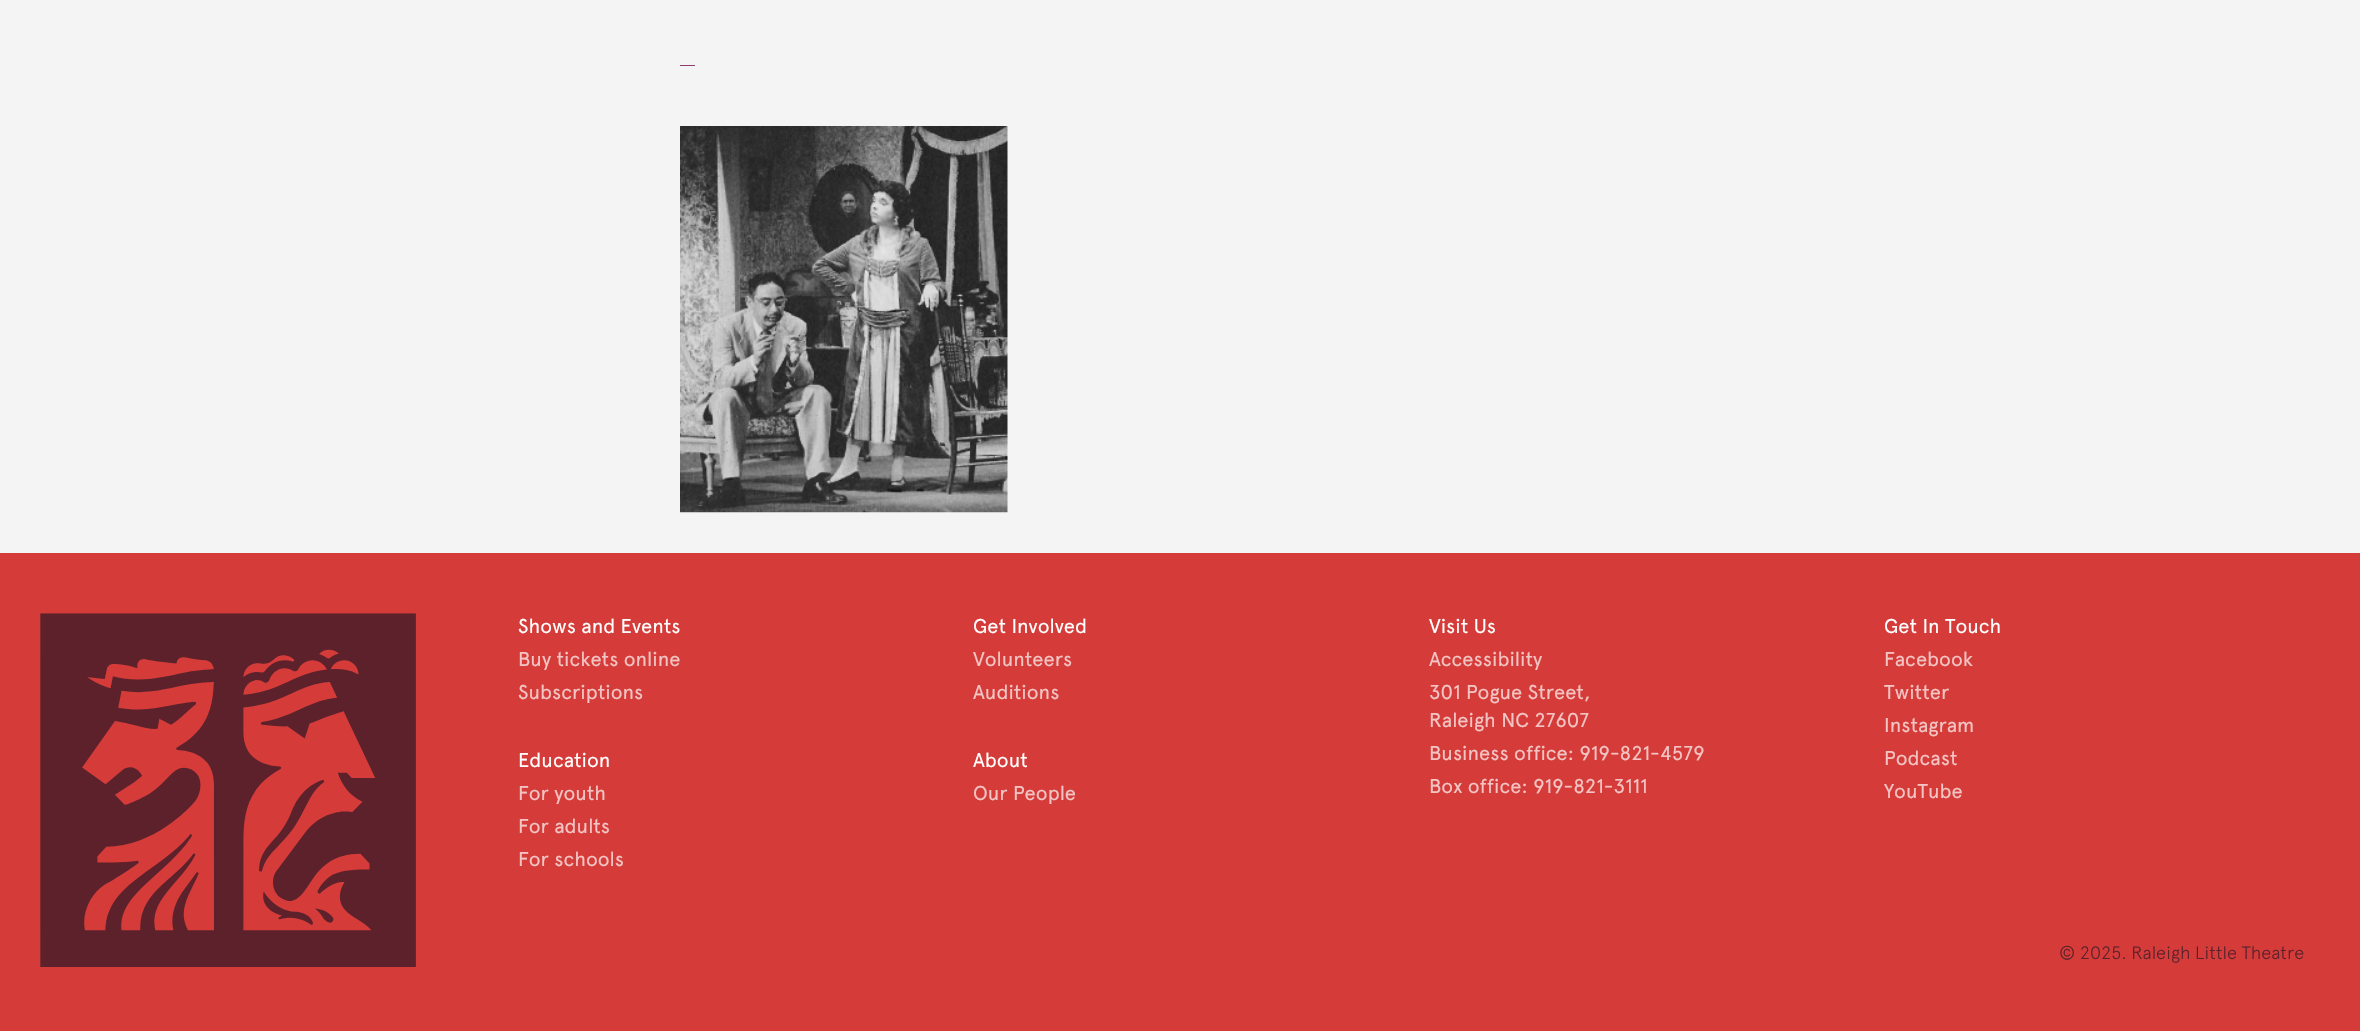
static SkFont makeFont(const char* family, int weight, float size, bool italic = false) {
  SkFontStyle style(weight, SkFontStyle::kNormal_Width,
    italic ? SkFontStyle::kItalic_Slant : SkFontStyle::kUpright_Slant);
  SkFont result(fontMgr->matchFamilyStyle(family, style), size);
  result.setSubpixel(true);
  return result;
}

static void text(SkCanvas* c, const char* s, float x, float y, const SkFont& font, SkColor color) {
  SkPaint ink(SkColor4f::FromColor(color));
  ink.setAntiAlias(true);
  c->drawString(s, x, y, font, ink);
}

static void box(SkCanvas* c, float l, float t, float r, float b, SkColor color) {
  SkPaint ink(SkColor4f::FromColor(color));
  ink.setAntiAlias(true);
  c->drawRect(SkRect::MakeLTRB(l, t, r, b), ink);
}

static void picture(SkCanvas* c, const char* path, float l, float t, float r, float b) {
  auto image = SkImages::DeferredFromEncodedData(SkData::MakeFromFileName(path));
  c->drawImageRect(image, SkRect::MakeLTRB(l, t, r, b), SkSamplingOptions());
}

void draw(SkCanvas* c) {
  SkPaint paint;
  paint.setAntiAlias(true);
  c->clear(0xfff4f4f4);
  box(c, 680, 65, 695, 66, 0xff8d3d66);
  picture(c, "img_01.png", 680, 126, 1008, 513);
  box(c, 0, 553, 2360, 1031, 0xffd53c39);
  picture(c, "img_02.png", 40, 613, 416, 967);
  SkFont face1 = makeFont("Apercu", 400, 20);
  text(c, "Shows and Events", 518, 633, face1, 0xffffffff);
  text(c, "Buy tickets online", 518, 666, face1, 0xfff2c5c4);
  text(c, "Subscriptions", 518, 699, face1, 0xfff2c5c4);
  text(c, "Education", 518, 767, face1, 0xffffffff);
  text(c, "For youth", 518, 800, face1, 0xfff2c5c4);
  text(c, "For adults", 518, 833, face1, 0xfff2c5c4);
  text(c, "For schools", 518, 866, face1, 0xfff2c5c4);
  text(c, "Get Involved", 973, 633, face1, 0xffffffff);
  text(c, "Volunteers", 973, 666, face1, 0xfff2c5c4);
  text(c, "Auditions", 973, 699, face1, 0xfff2c5c4);
  text(c, "About", 973, 767, face1, 0xffffffff);
  text(c, "Our People", 973, 800, face1, 0xfff2c5c4);
  text(c, "Visit Us", 1429, 633, face1, 0xffffffff);
  text(c, "Accessibility", 1429, 666, face1, 0xfff2c5c4);
  text(c, "301 Pogue Street,", 1429, 699, face1, 0xfff2c5c4);
  text(c, "Raleigh NC 27607", 1429, 727, face1, 0xfff2c5c4);
  text(c, "Business office: 919-821-4579", 1429, 760, face1, 0xfff2c5c4);
  text(c, "Box office: 919-821-3111", 1429, 793, face1, 0xfff2c5c4);
  text(c, "Get In Touch", 1884, 633, face1, 0xffffffff);
  text(c, "Facebook", 1884, 666, face1, 0xfff2c5c4);
  text(c, "Twitter", 1884, 699, face1, 0xfff2c5c4);
  text(c, "Instagram", 1884, 732, face1, 0xfff2c5c4);
  text(c, "Podcast", 1884, 765, face1, 0xfff2c5c4);
  text(c, "YouTube", 1884, 798, face1, 0xfff2c5c4);
  SkFont face2 = makeFont("Apercu", 300, 18);
  text(c, "© 2025. Raleigh Little Theatre", 2059, 959, face2, 0xff5d212b);
}
